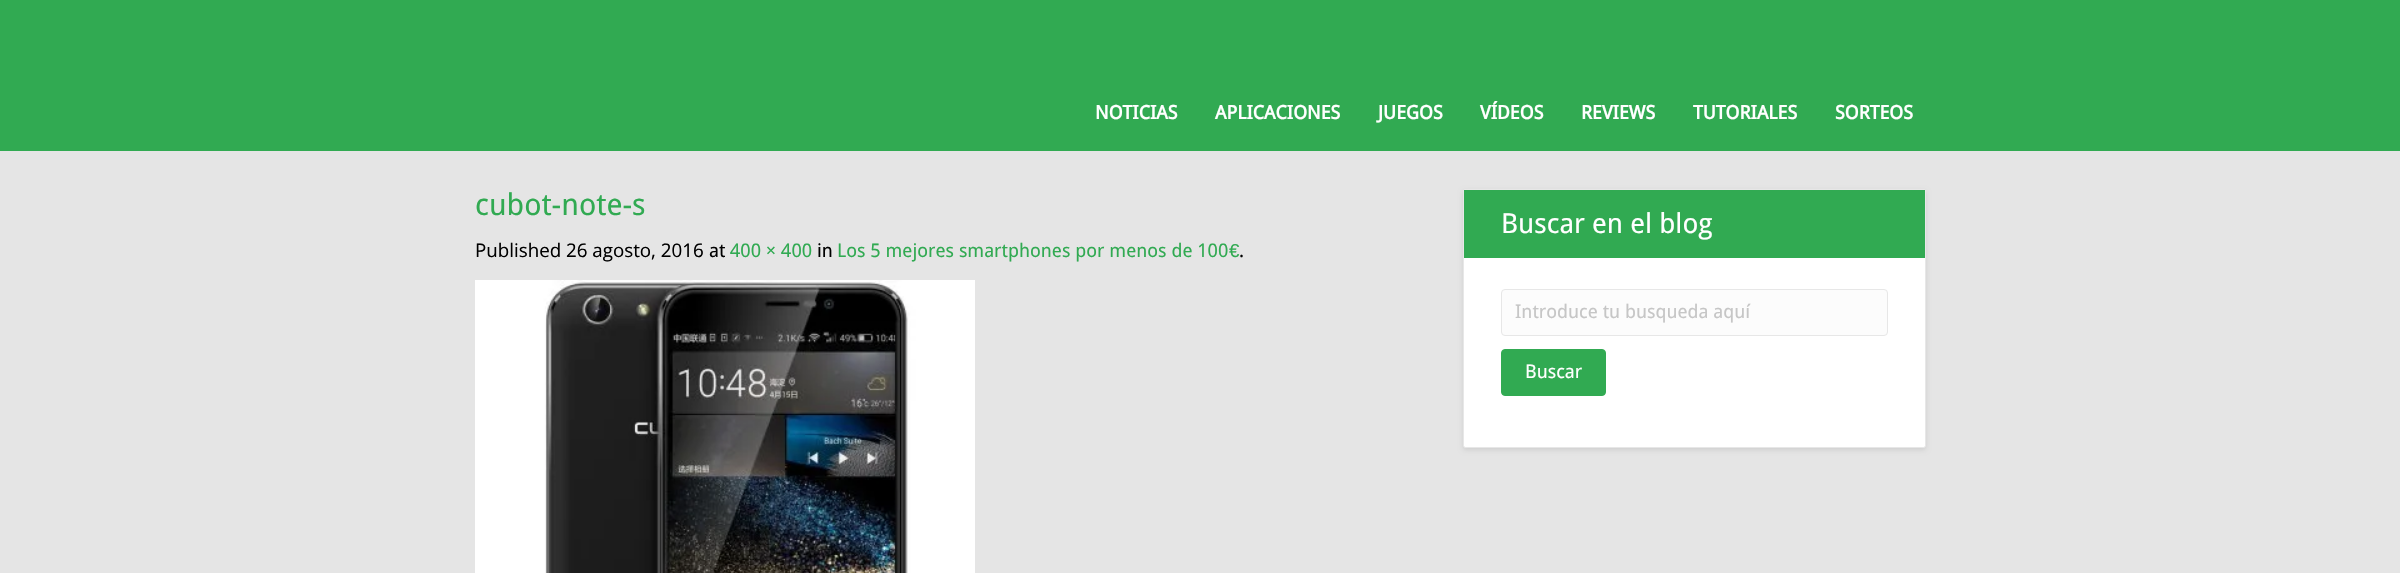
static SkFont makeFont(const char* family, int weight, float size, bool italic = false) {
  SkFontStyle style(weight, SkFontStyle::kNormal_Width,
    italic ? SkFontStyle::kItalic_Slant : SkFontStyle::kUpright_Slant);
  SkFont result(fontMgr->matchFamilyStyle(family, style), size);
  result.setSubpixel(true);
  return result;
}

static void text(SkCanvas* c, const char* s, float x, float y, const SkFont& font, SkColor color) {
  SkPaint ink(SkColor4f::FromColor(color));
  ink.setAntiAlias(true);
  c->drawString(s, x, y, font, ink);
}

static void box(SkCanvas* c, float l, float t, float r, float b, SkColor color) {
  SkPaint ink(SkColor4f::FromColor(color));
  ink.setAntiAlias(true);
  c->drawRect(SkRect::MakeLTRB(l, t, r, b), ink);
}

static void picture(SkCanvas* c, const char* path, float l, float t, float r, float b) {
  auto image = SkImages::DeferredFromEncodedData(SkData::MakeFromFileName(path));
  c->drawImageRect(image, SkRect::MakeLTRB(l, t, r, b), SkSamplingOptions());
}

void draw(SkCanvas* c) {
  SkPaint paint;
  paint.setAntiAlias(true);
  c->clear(0xffe5e5e5);
  box(c, 0, 0, 2400, 151, 0xff31aa52);
  SkFont face1 = makeFont("Droid Sans", 700, 18.75f);
  text(c, "NOTICIAS", 1095, 119, face1, 0xffffffff);
  text(c, "APLICACIONES", 1215, 119, face1, 0xffffffff);
  text(c, "JUEGOS", 1378, 119, face1, 0xffffffff);
  text(c, "VÍDEOS", 1480, 119, face1, 0xffffffff);
  text(c, "REVIEWS", 1581, 119, face1, 0xffffffff);
  text(c, "TUTORIALES", 1693, 119, face1, 0xffffffff);
  text(c, "SORTEOS", 1835, 119, face1, 0xffffffff);
  SkFont face2 = makeFont("Droid Sans", 400, 30);
  text(c, "cubot-note-s", 475, 215, face2, 0xff31aa52);
  SkFont face3 = makeFont("Open Sans", 400, 18.75f);
  text(c, "Published 26 agosto, 2016", 475, 257, face3, 0xff000000);
  SkFont face4 = makeFont("Droid Sans", 400, 18.75f);
  text(c, "at", 709, 257, face4, 0xff000000);
  text(c, "400 × 400", 730, 257, face4, 0xff31aa52);
  text(c, "in", 817, 257, face4, 0xff000000);
  text(c, "Los 5 mejores smartphones por menos de 100", 837, 257, face4, 0xff31aa52);
  SkFont face5 = makeFont("Liberation Sans", 400, 18.75f);
  text(c, "€", 1229, 257, face5, 0xff31aa52);
  text(c, ".", 1239, 257, face4, 0xff000000);
  picture(c, "img_01.png", 475, 280, 975, 573);
  paint.setColor(0x1a000000);
  paint.setMaskFilter(SkMaskFilter::MakeBlur(kNormal_SkBlurStyle, 2.5f));
  c->drawRoundRect(SkRect::MakeLTRB(1463, 191, 1926, 450), 2.5f, 2.5f, paint);
  paint.setMaskFilter(nullptr);
  paint.setColor(0xffffffff);
  c->drawRoundRect(SkRect::MakeLTRB(1463.5f, 189.5f, 1925.5f, 447.5f), 2, 2, paint);
  paint.setStyle(SkPaint::kStroke_Style);
  paint.setStrokeWidth(1);
  paint.setColor(0xffe7e7e7);
  c->drawRoundRect(SkRect::MakeLTRB(1463.5f, 189.5f, 1925.5f, 447.5f), 2, 2, paint);
  box(c, 1464, 190, 1925, 258, 0xff31aa52);
  SkFont face6 = makeFont("Droid Sans", 400, 27.5f);
  text(c, "Buscar en el blog", 1501, 233, face6, 0xffffffff);
  paint.setStyle(SkPaint::kFill_Style);
  paint.setColor(0xfffcfcfc);
  c->drawRoundRect(SkRect::MakeLTRB(1501.5f, 289.5f, 1887.5f, 335.5f), 3.5f, 3.5f, paint);
  paint.setStyle(SkPaint::kStroke_Style);
  paint.setColor(0xffe7e7e7);
  c->drawRoundRect(SkRect::MakeLTRB(1501.5f, 289.5f, 1887.5f, 335.5f), 3.5f, 3.5f, paint);
  text(c, "Introduce tu busqueda aquí", 1515, 318, face4, 0xffc6c6c6);
  paint.setStyle(SkPaint::kFill_Style);
  paint.setColor(0xff31aa52);
  c->drawRoundRect(SkRect::MakeLTRB(1501.5f, 349.5f, 1605.5f, 395.5f), 3.5f, 3.5f, paint);
  paint.setStyle(SkPaint::kStroke_Style);
  c->drawRoundRect(SkRect::MakeLTRB(1501.5f, 349.5f, 1605.5f, 395.5f), 3.5f, 3.5f, paint);
  text(c, "Buscar", 1525, 378, face4, 0xffffffff);
}
